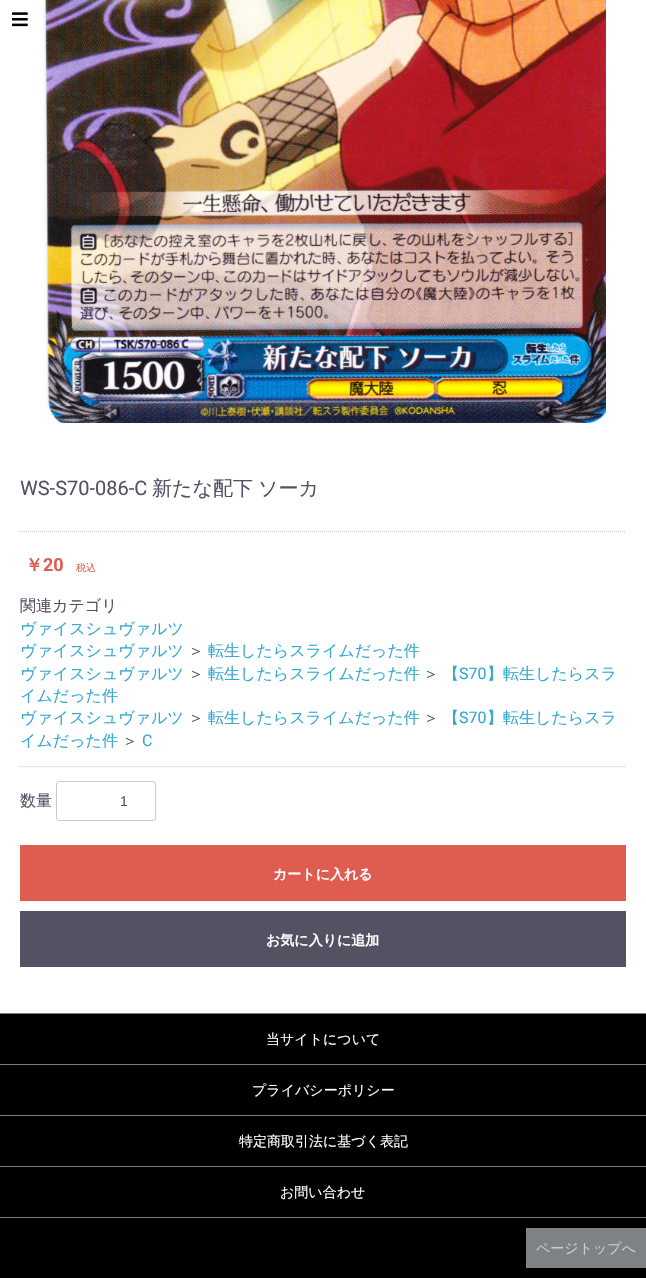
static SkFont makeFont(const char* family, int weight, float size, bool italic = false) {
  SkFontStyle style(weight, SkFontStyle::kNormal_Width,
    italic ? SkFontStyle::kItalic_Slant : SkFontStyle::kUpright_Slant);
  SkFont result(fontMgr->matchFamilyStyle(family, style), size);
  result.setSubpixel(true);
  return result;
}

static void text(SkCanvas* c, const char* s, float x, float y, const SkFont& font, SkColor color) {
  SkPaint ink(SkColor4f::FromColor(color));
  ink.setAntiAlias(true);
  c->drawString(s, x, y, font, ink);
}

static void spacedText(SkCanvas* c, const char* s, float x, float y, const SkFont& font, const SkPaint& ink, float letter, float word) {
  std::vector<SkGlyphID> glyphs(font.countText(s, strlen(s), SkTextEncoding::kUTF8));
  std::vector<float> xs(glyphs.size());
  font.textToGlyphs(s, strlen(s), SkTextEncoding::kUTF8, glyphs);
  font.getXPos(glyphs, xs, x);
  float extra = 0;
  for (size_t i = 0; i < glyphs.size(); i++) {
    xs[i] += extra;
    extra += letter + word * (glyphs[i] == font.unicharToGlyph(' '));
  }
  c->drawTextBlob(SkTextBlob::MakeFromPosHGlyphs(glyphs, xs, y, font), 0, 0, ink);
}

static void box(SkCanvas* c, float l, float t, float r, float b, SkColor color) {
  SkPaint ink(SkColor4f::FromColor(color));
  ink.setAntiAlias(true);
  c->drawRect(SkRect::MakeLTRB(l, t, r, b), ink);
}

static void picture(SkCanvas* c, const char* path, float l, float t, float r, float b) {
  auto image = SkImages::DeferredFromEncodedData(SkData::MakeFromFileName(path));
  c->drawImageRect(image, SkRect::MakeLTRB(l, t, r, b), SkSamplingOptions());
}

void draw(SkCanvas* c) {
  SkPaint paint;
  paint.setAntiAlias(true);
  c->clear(0xffffffff);
  picture(c, "img_01.png", 12, 12, 28, 27);
  picture(c, "img_02.png", 43, 0, 606, 423);
  SkFont face1 = makeFont("Roboto", 400, 20);
  text(c, "WS-S70-086-C", 20, 495, face1, 0xff525263);
  SkFont face2 = makeFont("WenQuanYi Zen Hei", 500, 20);
  paint.setColor(0xff525263);
  spacedText(c, "新たな配下 ソーカ", 152, 495, face2, paint, 0, -1);
  paint.setStyle(SkPaint::kStroke_Style);
  paint.setStrokeWidth(1);
  paint.setColor(0xffcccccc);
  paint.setPathEffect(SkDashPathEffect::Make({{1, 1}}, 0));
  c->drawPath(SkPathBuilder().moveTo(20, 531.5f).lineTo(626, 531.5f).detach(), paint);
  paint.setPathEffect(nullptr);
  SkFont face3 = makeFont("WenQuanYi Zen Hei", 700, 18);
  text(c, "￥", 25, 571, face3, 0xffde5d50);
  SkFont face4 = makeFont("Roboto", 700, 18);
  text(c, "20", 43, 571, face4, 0xffde5d50);
  SkFont face5 = makeFont("WenQuanYi Zen Hei", 500, 10);
  text(c, "税込", 76, 571, face5, 0xffde5d50);
  paint.setPathEffect(SkDashPathEffect::Make({{1, 1}}, 0));
  c->drawPath(SkPathBuilder().moveTo(20, 766.5f).lineTo(626, 766.5f).detach(), paint);
  paint.setPathEffect(nullptr);
  SkFont face6 = makeFont("WenQuanYi Zen Hei", 500, 16);
  text(c, "関連カテゴリ", 20, 611, face6, 0xff525263);
  text(c, "ヴァイスシュヴァルツ", 20, 634, face6, 0xff33a8d0);
  text(c, "ヴァイスシュヴァルツ", 20, 656, face6, 0xff33a8d0);
  text(c, "＞", 188, 656, face6, 0xff525263);
  text(c, "転生したらスライムだった件", 208, 656, face6, 0xff33a8d0);
  text(c, "ヴァイスシュヴァルツ", 20, 679, face6, 0xff33a8d0);
  text(c, "＞", 188, 679, face6, 0xff525263);
  text(c, "転生したらスライムだった件", 208, 679, face6, 0xff33a8d0);
  text(c, "＞", 423, 679, face6, 0xff525263);
  text(c, "【", 443, 679, face6, 0xff33a8d0);
  SkFont face7 = makeFont("Roboto", 400, 16);
  text(c, "S70", 459, 679, face7, 0xff33a8d0);
  text(c, "】転生したらスラ", 487, 679, face6, 0xff33a8d0);
  text(c, "イムだった件", 20, 701, face6, 0xff33a8d0);
  text(c, "ヴァイスシュヴァルツ", 20, 723, face6, 0xff33a8d0);
  text(c, "＞", 188, 723, face6, 0xff525263);
  text(c, "転生したらスライムだった件", 208, 723, face6, 0xff33a8d0);
  text(c, "＞", 423, 723, face6, 0xff525263);
  text(c, "【", 443, 723, face6, 0xff33a8d0);
  text(c, "S70", 459, 723, face7, 0xff33a8d0);
  text(c, "】転生したらスラ", 487, 723, face6, 0xff33a8d0);
  text(c, "イムだった件", 20, 746, face6, 0xff33a8d0);
  text(c, "＞", 122, 746, face6, 0xff525263);
  text(c, "C", 142, 746, face7, 0xff33a8d0);
  text(c, "数量", 20, 806, face6, 0xff525263);
  c->drawRoundRect(SkRect::MakeLTRB(56.5f, 781.5f, 155.5f, 820.5f), 2.5f, 2.5f, paint);
  SkFont face8 = makeFont("Liberation Sans", 400, 14);
  text(c, "1", 120, 806, face8, 0xff555555);
  box(c, 20, 845, 626, 901, 0xffde5d50);
  SkFont face9 = makeFont("WenQuanYi Zen Hei", 700, 14);
  text(c, "カートに入れる", 273, 879, face9, 0xffffffff);
  box(c, 20, 911, 626, 967, 0xff525263);
  text(c, "お気に入りに追加", 266, 945, face9, 0xffffffff);
  box(c, 0, 1014, 646, 1278, 0xff000000);
  box(c, 0, 1013, 646, 1014, 0xff7d7d7d);
  box(c, 0, 1064, 646, 1065, 0xff7d7d7d);
  SkFont face10 = makeFont("WenQuanYi Zen Hei", 500, 14);
  text(c, "当サイトについて", 266, 1044, face10, 0xffffffff);
  box(c, 0, 1115, 646, 1116, 0xff7d7d7d);
  text(c, "プライバシーポリシー", 252, 1095, face10, 0xffffffff);
  box(c, 0, 1166, 646, 1167, 0xff7d7d7d);
  text(c, "特定商取引法に基づく表記", 239, 1146, face10, 0xffffffff);
  box(c, 0, 1217, 646, 1218, 0xff7d7d7d);
  text(c, "お問い合わせ", 280, 1197, face10, 0xffffffff);
  box(c, 526, 1228, 646, 1268, 0xff7e8287);
  text(c, "ページトップへ", 536, 1253, face10, 0xffcccccc);
}
